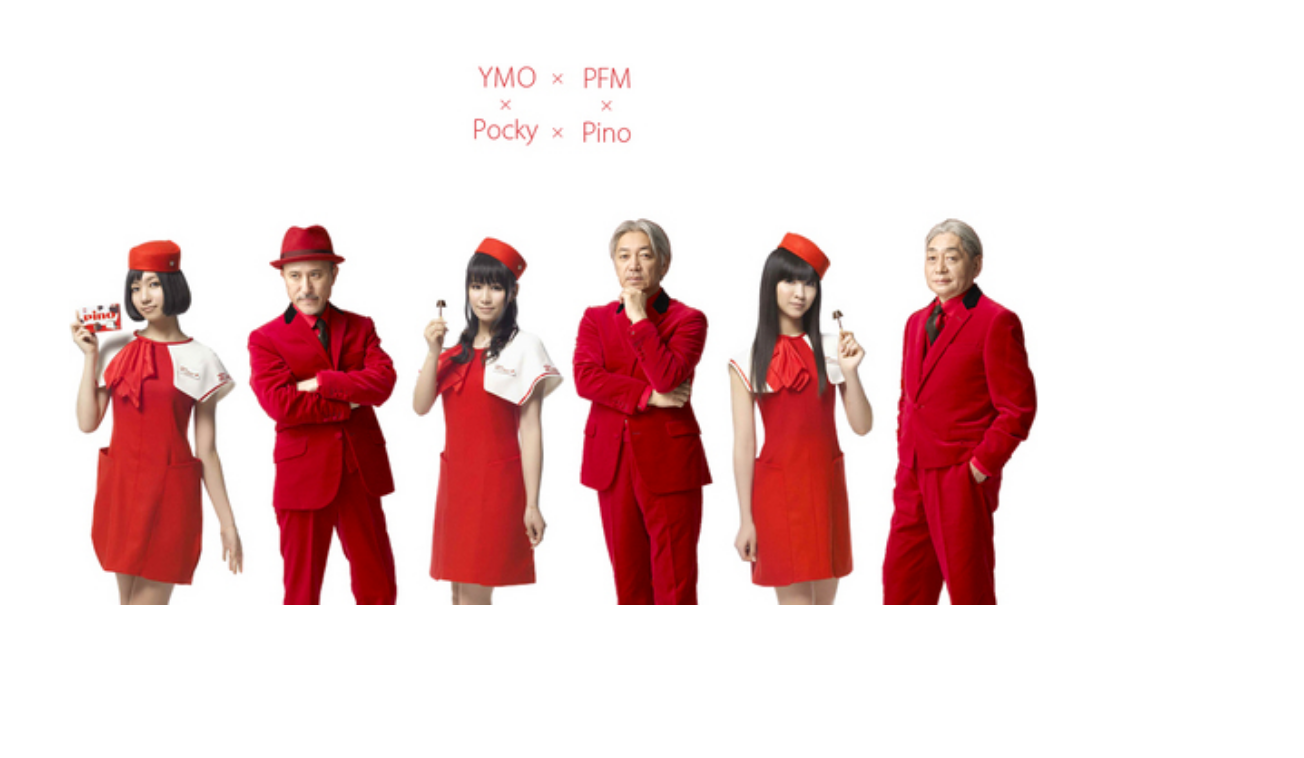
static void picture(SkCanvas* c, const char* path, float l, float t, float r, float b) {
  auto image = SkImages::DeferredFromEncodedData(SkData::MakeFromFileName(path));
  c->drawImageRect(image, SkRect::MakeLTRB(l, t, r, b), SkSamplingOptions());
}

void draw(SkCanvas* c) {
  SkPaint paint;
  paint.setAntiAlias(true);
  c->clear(0xffffffff);
  picture(c, "img_01.png", 69, 63, 1038, 605);
}
